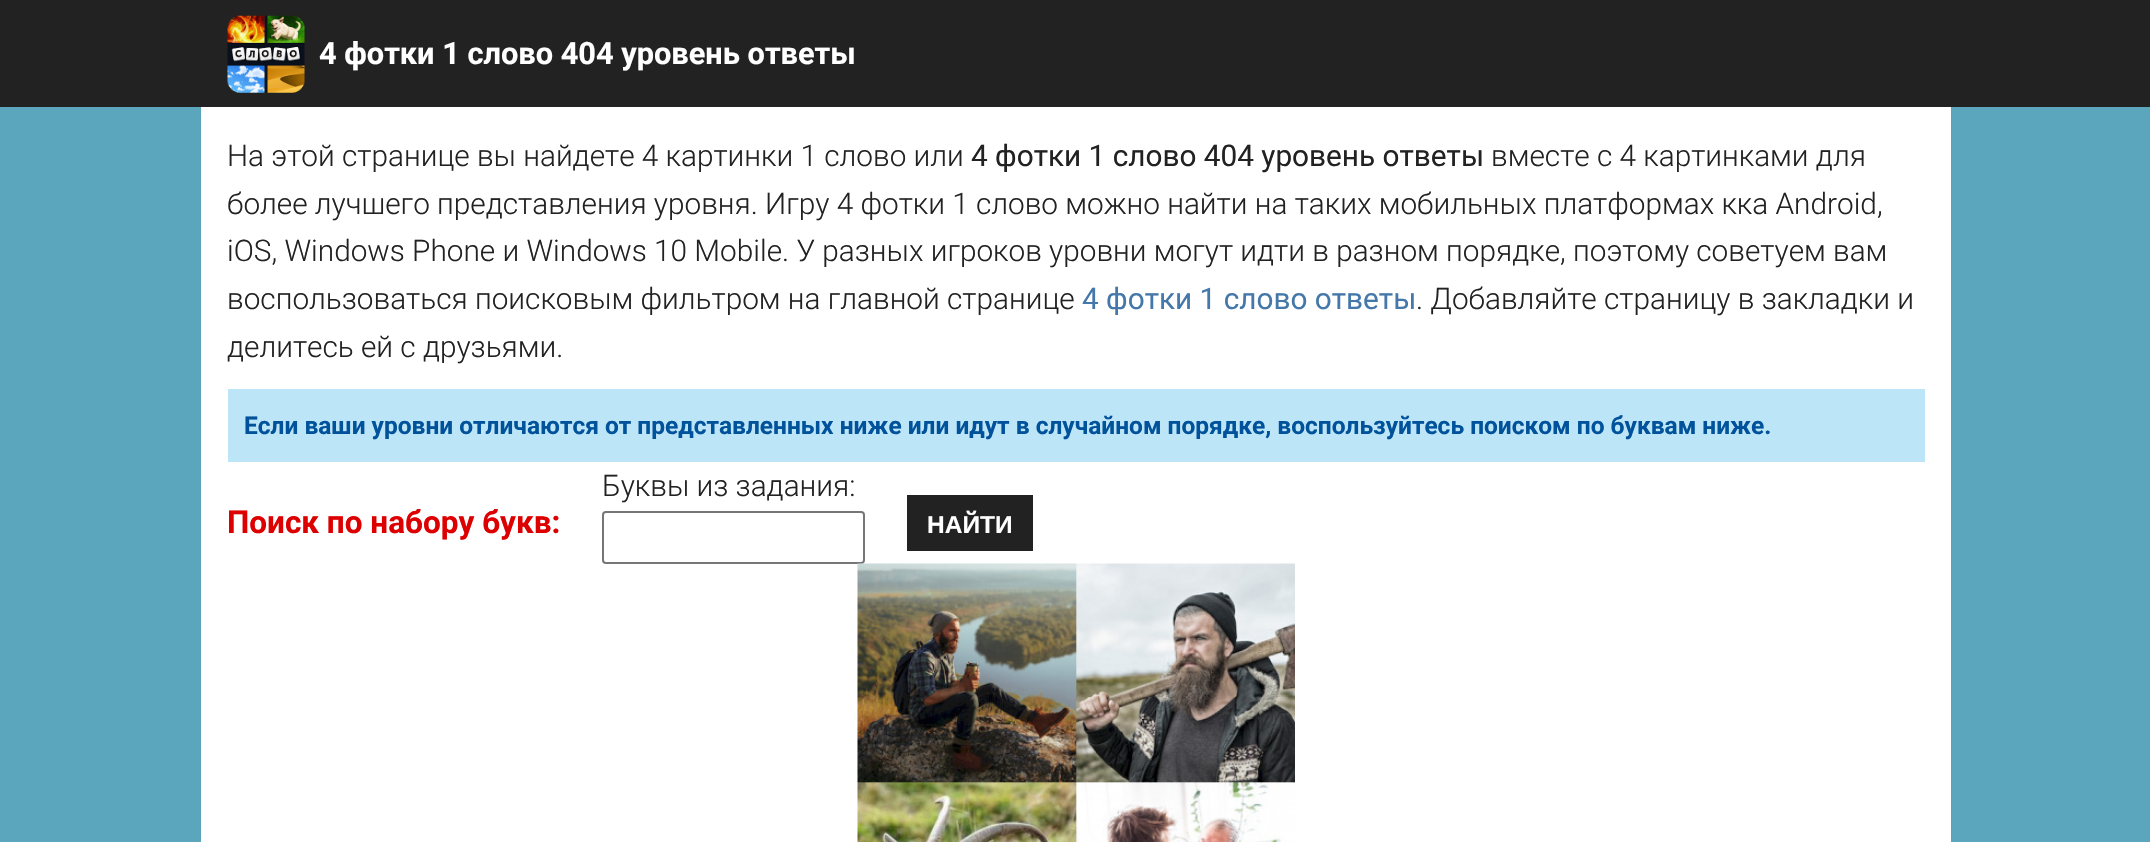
static SkFont makeFont(const char* family, int weight, float size, bool italic = false) {
  SkFontStyle style(weight, SkFontStyle::kNormal_Width,
    italic ? SkFontStyle::kItalic_Slant : SkFontStyle::kUpright_Slant);
  SkFont result(fontMgr->matchFamilyStyle(family, style), size);
  result.setSubpixel(true);
  return result;
}

static void text(SkCanvas* c, const char* s, float x, float y, const SkFont& font, SkColor color) {
  SkPaint ink(SkColor4f::FromColor(color));
  ink.setAntiAlias(true);
  c->drawString(s, x, y, font, ink);
}

static void box(SkCanvas* c, float l, float t, float r, float b, SkColor color) {
  SkPaint ink(SkColor4f::FromColor(color));
  ink.setAntiAlias(true);
  c->drawRect(SkRect::MakeLTRB(l, t, r, b), ink);
}

static void picture(SkCanvas* c, const char* path, float l, float t, float r, float b) {
  auto image = SkImages::DeferredFromEncodedData(SkData::MakeFromFileName(path));
  c->drawImageRect(image, SkRect::MakeLTRB(l, t, r, b), SkSamplingOptions());
}

void draw(SkCanvas* c) {
  SkPaint paint;
  paint.setAntiAlias(true);
  c->clear(0xff5ba5bd);
  box(c, 0, 0, 2150, 107, 0xff222222);
  picture(c, "img_01.png", 227, 15, 305, 93);
  SkFont face1 = makeFont("Roboto", 700, 30.75f);
  text(c, "4 фотки 1 слово 404 уровень ответы", 319, 64, face1, 0xffffffff);
  box(c, 201, 107, 1951, 842, 0xffffffff);
  SkFont face2 = makeFont("Roboto", 300, 29.75f);
  text(c, "На этой странице вы найдете 4 картинки 1 слово или", 227, 166, face2, 0xff222222);
  SkFont face3 = makeFont("Roboto", 400, 29.75f);
  text(c, "4 фотки 1 слово 404 уровень ответы", 971, 166, face3, 0xff222222);
  text(c, "вместе с 4 картинками для", 1491, 166, face2, 0xff222222);
  text(c, "более лучшего представления уровня. Игру 4 фотки 1 слово можно найти на таких мобильных платформах кка Android,", 227, 214, face2, 0xff222222);
  text(c, "iOS, Windows Phone и Windows 10 Mobile. У разных игроков уровни могут идти в разном порядке, поэтому советуем вам", 227, 261, face2, 0xff222222);
  text(c, "воспользоваться поисковым фильтром на главной странице", 227, 309, face2, 0xff222222);
  text(c, "4 фотки 1 слово ответы", 1082, 309, face3, 0xff4477aa);
  text(c, ". Добавляйте страницу в закладки и", 1416, 309, face2, 0xff222222);
  text(c, "делитесь ей с друзьями.", 227, 357, face2, 0xff222222);
  box(c, 228, 389, 1925, 462, 0xffbde5f8);
  SkFont face4 = makeFont("Roboto", 700, 24.5f);
  text(c, "Если ваши уровни отличаются от представленных ниже или идут в случайном порядке, воспользуйтесь поиском по буквам ниже.", 244, 434, face4, 0xff00529b);
  text(c, "Буквы из задания:", 602, 496, face2, 0xff222222);
  paint.setStyle(SkPaint::kStroke_Style);
  paint.setStrokeWidth(2);
  paint.setColor(0xff767676);
  c->drawRoundRect(SkRect::MakeLTRB(603, 512, 864, 563), 3, 3, paint);
  SkFont face5 = makeFont("Roboto", 700, 31.5f);
  text(c, "Поиск по набору букв:", 227, 533, face5, 0xffdd0000);
  box(c, 907, 495, 1033, 551, 0xff222222);
  SkFont face6 = makeFont("Liberation Sans", 700, 24.5f);
  text(c, "НАЙТИ", 927, 533, face6, 0xffffffff);
  picture(c, "img_02.png", 857, 563, 1295, 842);
}
